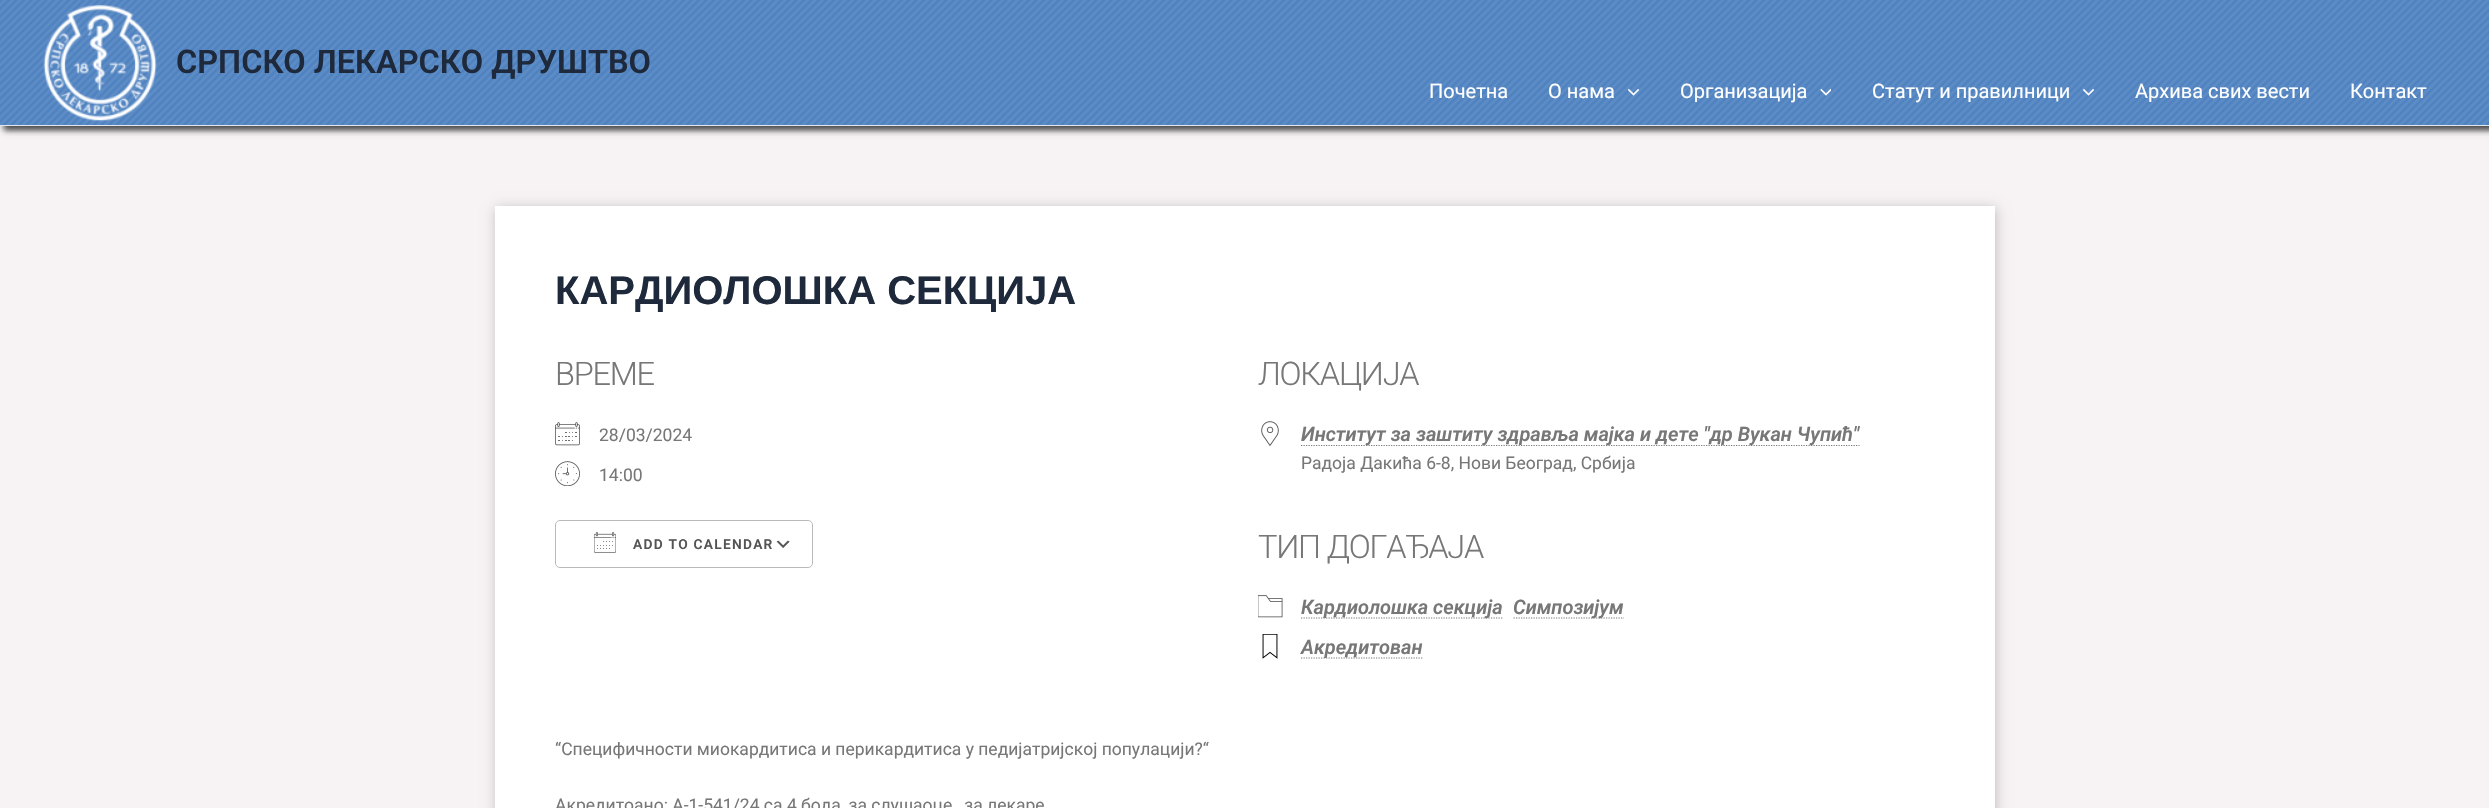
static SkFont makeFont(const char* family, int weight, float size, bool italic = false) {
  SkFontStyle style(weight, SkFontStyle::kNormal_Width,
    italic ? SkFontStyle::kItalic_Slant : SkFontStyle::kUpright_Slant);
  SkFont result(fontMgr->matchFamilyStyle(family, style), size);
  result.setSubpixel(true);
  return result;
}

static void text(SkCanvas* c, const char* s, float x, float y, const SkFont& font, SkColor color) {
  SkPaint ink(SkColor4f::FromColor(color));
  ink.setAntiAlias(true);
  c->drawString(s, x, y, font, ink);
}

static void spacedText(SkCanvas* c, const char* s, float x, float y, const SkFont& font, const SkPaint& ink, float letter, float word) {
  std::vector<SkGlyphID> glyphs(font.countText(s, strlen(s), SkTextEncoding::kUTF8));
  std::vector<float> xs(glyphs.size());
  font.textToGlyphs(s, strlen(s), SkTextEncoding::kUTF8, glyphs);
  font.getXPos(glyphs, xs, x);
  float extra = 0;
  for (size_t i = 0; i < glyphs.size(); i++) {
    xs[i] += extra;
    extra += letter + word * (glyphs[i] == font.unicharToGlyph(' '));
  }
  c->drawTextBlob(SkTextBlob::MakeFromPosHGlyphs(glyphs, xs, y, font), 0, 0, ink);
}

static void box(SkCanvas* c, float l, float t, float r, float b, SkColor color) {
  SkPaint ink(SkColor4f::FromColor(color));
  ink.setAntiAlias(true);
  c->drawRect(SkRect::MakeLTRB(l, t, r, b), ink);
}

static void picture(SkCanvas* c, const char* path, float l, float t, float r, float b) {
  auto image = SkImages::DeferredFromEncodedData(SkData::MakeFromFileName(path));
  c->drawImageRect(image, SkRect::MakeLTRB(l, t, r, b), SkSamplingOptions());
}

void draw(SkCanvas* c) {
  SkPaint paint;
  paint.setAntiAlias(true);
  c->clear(0xfff7f3f5);
  paint.setColor(0x73000000);
  paint.setMaskFilter(SkMaskFilter::MakeBlur(kNormal_SkBlurStyle, 3));
  c->drawRect(SkRect::MakeLTRB(4, 4, 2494, 130), paint);
  paint.setMaskFilter(nullptr);
  paint.setMaskFilter(SkMaskFilter::MakeBlur(kNormal_SkBlurStyle, 3));
  c->drawRect(SkRect::MakeLTRB(4, 4, 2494, 130), paint);
  paint.setMaskFilter(nullptr);
  box(c, 0, 0, 2489, 125, 0xff4d81c0);
  picture(c, "img_01.png", 0, 0, 2489, 125);
  box(c, 0, 125, 2489, 126, 0xffe2e8f0);
  picture(c, "img_02.png", 43, 5, 157, 122);
  SkFont face1 = makeFont("Roboto", 600, 32.5f);
  text(c, "СРПСКО ЛЕКАРСКО ДРУШТВО", 176, 73, face1, 0xff1e293b);
  SkFont face2 = makeFont("Roboto", 400, 20);
  text(c, "Почетна", 1429, 98, face2, 0xffffffff);
  text(c, "О нама", 1548, 98, face2, 0xffffffff);
  picture(c, "img_03.png", 1628, 88, 1640, 96);
  text(c, "Организација", 1680, 98, face2, 0xffffffff);
  picture(c, "img_04.png", 1820, 88, 1831, 96);
  text(c, "Статут и правилници", 1872, 98, face2, 0xffffffff);
  picture(c, "img_05.png", 2083, 88, 2095, 96);
  text(c, "Архива свих вести", 2135, 98, face2, 0xffffffff);
  text(c, "Контакт", 2350, 98, face2, 0xffffffff);
  paint.setColor(0x38000000);
  paint.setMaskFilter(SkMaskFilter::MakeBlur(kNormal_SkBlurStyle, 6));
  c->drawRect(SkRect::MakeLTRB(496, 208, 1996, 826), paint);
  paint.setMaskFilter(nullptr);
  box(c, 495, 206, 1995, 808, 0xffffffff);
  SkFont face3 = makeFont("Liberation Sans", 700, 40);
  text(c, "КАРДИОЛОШКА СЕКЦИЈА", 555, 304, face3, 0xff1e293b);
  SkFont face4 = makeFont("Roboto", 300, 32.5f);
  paint.setColor(0xff777777);
  spacedText(c, "ВРЕМЕ", 555, 385, face4, paint, -1.25f, 0);
  picture(c, "img_06.png", 555, 422, 580, 446);
  SkFont face5 = makeFont("Roboto", 400, 17.5f);
  text(c, "28/03/2024", 599, 441, face5, 0xff777777);
  picture(c, "img_07.png", 555, 461, 580, 486);
  text(c, "14:00", 599, 481, face5, 0xff777777);
  picture(c, "img_08.png", 776, 540, 790, 548);
  paint.setStyle(SkPaint::kStroke_Style);
  paint.setStrokeWidth(1);
  paint.setColor(0xffbababa);
  c->drawRoundRect(SkRect::MakeLTRB(555.5f, 520.5f, 812.5f, 567.5f), 4.5f, 4.5f, paint);
  picture(c, "img_09.png", 594, 532, 616, 553);
  SkFont face6 = makeFont("Roboto", 600, 13.75f);
  paint.setStyle(SkPaint::kFill_Style);
  paint.setColor(0xff545454);
  spacedText(c, "ADD TO CALENDAR", 633, 549, face6, paint, 1.25f, 0);
  paint.setColor(0xff777777);
  spacedText(c, "ЛОКАЦИЈА", 1258, 385, face4, paint, -1.25f, 0);
  picture(c, "img_10.png", 1261, 421, 1279, 446);
  paint.setStyle(SkPaint::kStroke_Style);
  paint.setStrokeWidth(1.2f);
  paint.setColor(0xff787878);
  paint.setPathEffect(SkDashPathEffect::Make({{1.25f, 1.25f}}, 0));
  c->drawPath(SkPathBuilder().moveTo(1301, 445.5f).lineTo(1859.5f, 445.5f).detach(), paint);
  paint.setPathEffect(nullptr);
  SkFont face7 = makeFont("Roboto", 600, 20, true);
  text(c, "Институт за заштиту здравља мајка и дете \"др Вукан Чупић\"", 1301, 441, face7, 0xff777777);
  text(c, "Радоја Дакића 6-8, Нови Београд, Србија", 1301, 469, face5, 0xff777777);
  paint.setStyle(SkPaint::kFill_Style);
  paint.setColor(0xff777777);
  spacedText(c, "ТИП ДОГАЂАЈА", 1258, 558, face4, paint, -1.25f, 0);
  picture(c, "img_11.png", 1258, 595, 1283, 618);
  paint.setStyle(SkPaint::kStroke_Style);
  paint.setColor(0xff787878);
  paint.setPathEffect(SkDashPathEffect::Make({{1.25f, 1.25f}}, 0));
  c->drawPath(SkPathBuilder().moveTo(1301, 618).lineTo(1503, 618).detach(), paint);
  paint.setPathEffect(nullptr);
  text(c, "Кардиолошка секција", 1301, 614, face7, 0xff777777);
  paint.setPathEffect(SkDashPathEffect::Make({{1.25f, 1.25f}}, 0));
  c->drawPath(SkPathBuilder().moveTo(1513.5f, 618).lineTo(1624, 618).detach(), paint);
  paint.setPathEffect(nullptr);
  text(c, "Симпозијум", 1513, 614, face7, 0xff777777);
  picture(c, "img_12.png", 1262, 634, 1278, 659);
  paint.setPathEffect(SkDashPathEffect::Make({{1.25f, 1.25f}}, 0));
  c->drawPath(SkPathBuilder().moveTo(1301, 658).lineTo(1422.5f, 658).detach(), paint);
  paint.setPathEffect(nullptr);
  text(c, "Акредитован", 1301, 654, face7, 0xff777777);
  text(c, "“Специфичности миокардитиса и перикардитиса у педијатријској популацији?“", 555, 755, face5, 0xff777777);
  text(c, "Акредитоано: А-1-541/24 са 4 бода, за слушаоце , за лекаре", 555, 811, face5, 0xff777777);
}
